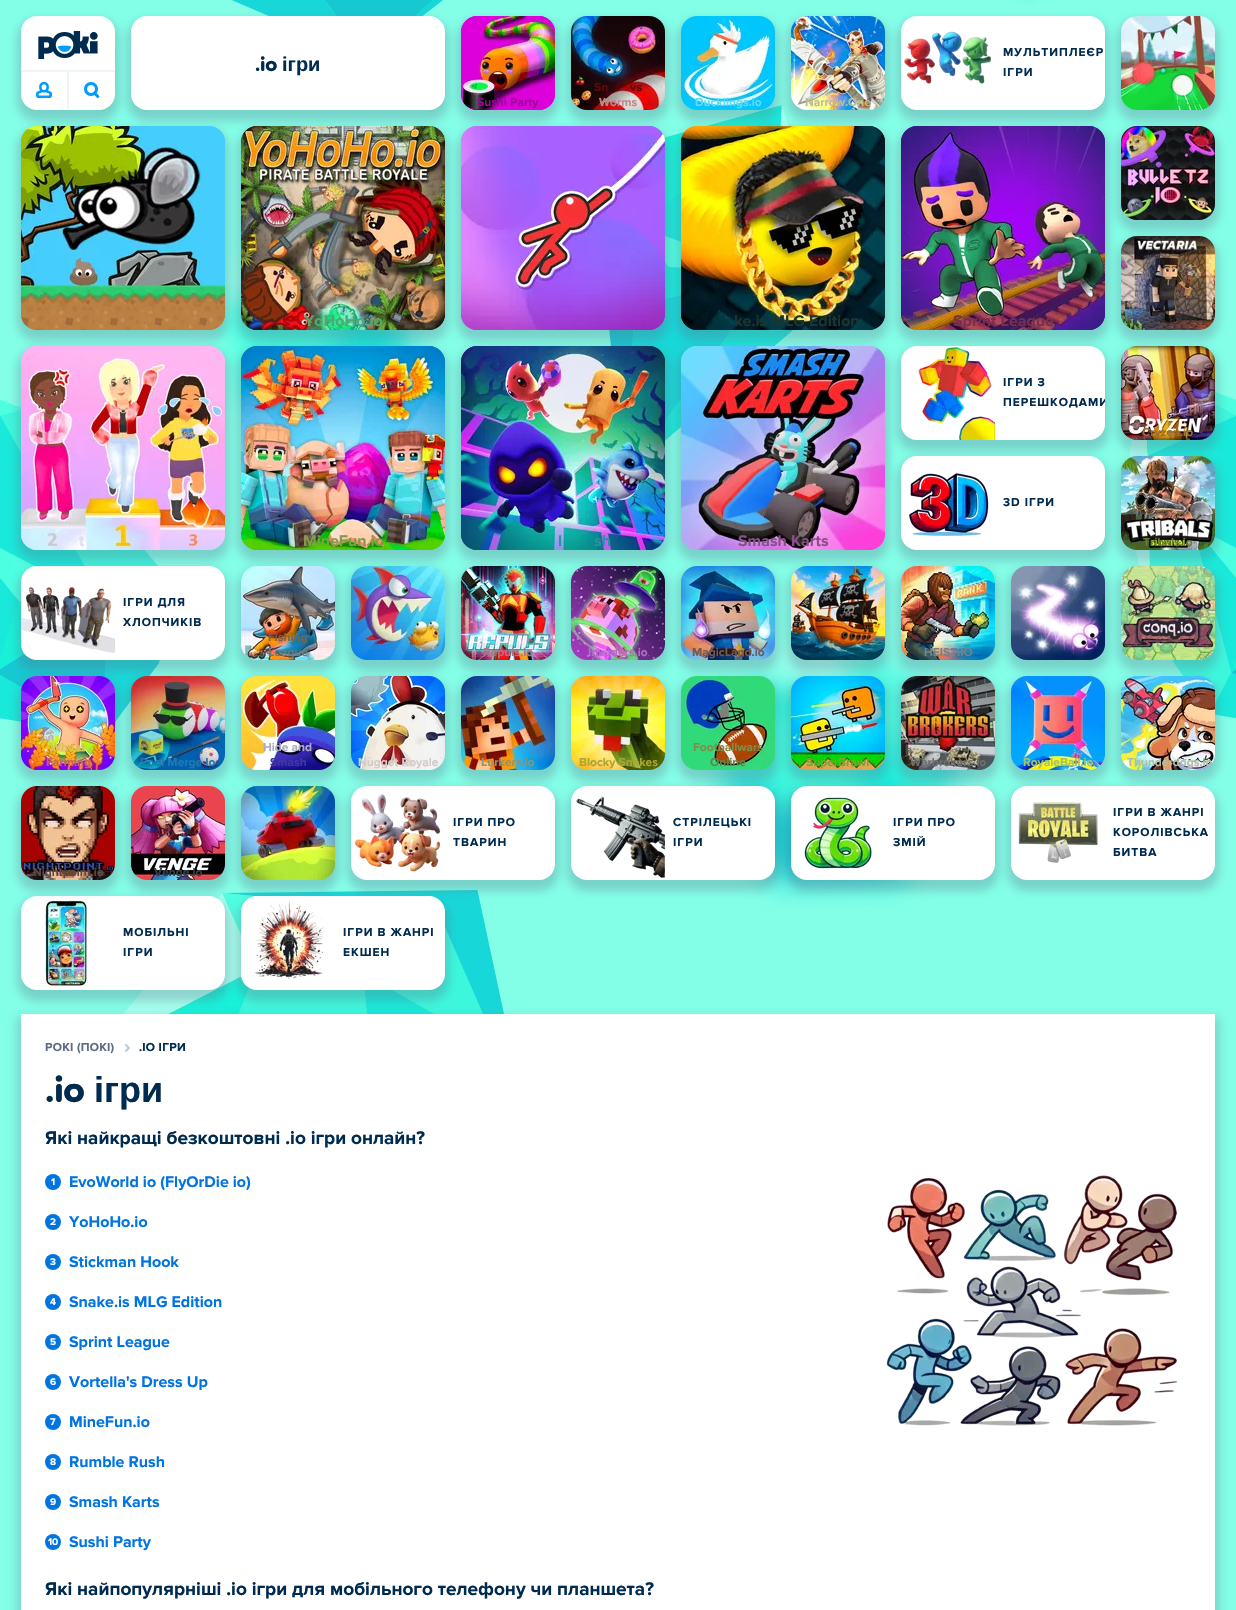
static SkFont makeFont(const char* family, int weight, float size, bool italic = false) {
  SkFontStyle style(weight, SkFontStyle::kNormal_Width,
    italic ? SkFontStyle::kItalic_Slant : SkFontStyle::kUpright_Slant);
  SkFont result(fontMgr->matchFamilyStyle(family, style), size);
  result.setSubpixel(true);
  return result;
}

static void text(SkCanvas* c, const char* s, float x, float y, const SkFont& font, SkColor color) {
  SkPaint ink(SkColor4f::FromColor(color));
  ink.setAntiAlias(true);
  c->drawString(s, x, y, font, ink);
}

static void spacedText(SkCanvas* c, const char* s, float x, float y, const SkFont& font, const SkPaint& ink, float letter, float word) {
  std::vector<SkGlyphID> glyphs(font.countText(s, strlen(s), SkTextEncoding::kUTF8));
  std::vector<float> xs(glyphs.size());
  font.textToGlyphs(s, strlen(s), SkTextEncoding::kUTF8, glyphs);
  font.getXPos(glyphs, xs, x);
  float extra = 0;
  for (size_t i = 0; i < glyphs.size(); i++) {
    xs[i] += extra;
    extra += letter + word * (glyphs[i] == font.unicharToGlyph(' '));
  }
  c->drawTextBlob(SkTextBlob::MakeFromPosHGlyphs(glyphs, xs, y, font), 0, 0, ink);
}

static void box(SkCanvas* c, float l, float t, float r, float b, SkColor color) {
  SkPaint ink(SkColor4f::FromColor(color));
  ink.setAntiAlias(true);
  c->drawRect(SkRect::MakeLTRB(l, t, r, b), ink);
}

static void roundBox(SkCanvas* c, float l, float t, float r, float b, float radius, SkColor color) {
  SkPaint ink(SkColor4f::FromColor(color));
  ink.setAntiAlias(true);
  c->drawRoundRect(SkRect::MakeLTRB(l, t, r, b), radius, radius, ink);
}

static void picture(SkCanvas* c, const char* path, float l, float t, float r, float b) {
  auto image = SkImages::DeferredFromEncodedData(SkData::MakeFromFileName(path));
  c->drawImageRect(image, SkRect::MakeLTRB(l, t, r, b), SkSamplingOptions());
}

void draw(SkCanvas* c) {
  SkPaint paint;
  paint.setAntiAlias(true);
  c->clear(0xff83ffe7);
  picture(c, "img_01.png", 0, 0, 1236, 1014);
  paint.setColor(0x4d5d6b84);
  paint.setMaskFilter(SkMaskFilter::MakeBlur(kNormal_SkBlurStyle, 5));
  c->drawRoundRect(SkRect::MakeLTRB(127, 19, 449, 121), 20, 20, paint);
  paint.setMaskFilter(nullptr);
  roundBox(c, 131, 16, 445, 110, 16, 0xffffffff);
  paint.setMaskFilter(SkMaskFilter::MakeBlur(kNormal_SkBlurStyle, 5));
  c->drawRoundRect(SkRect::MakeLTRB(17, 129, 229, 341), 20, 20, paint);
  paint.setMaskFilter(nullptr);
  picture(c, "img_12.png", 21, 126, 225, 330);
  picture(c, "img_13.png", 21, 126, 225, 330);
  paint.setMaskFilter(SkMaskFilter::MakeBlur(kNormal_SkBlurStyle, 5));
  c->drawRoundRect(SkRect::MakeLTRB(17, 19, 119, 121), 20, 20, paint);
  paint.setMaskFilter(nullptr);
  roundBox(c, 21, 16, 115, 110, 16, 0xffffffff);
  picture(c, "img_02.png", 38, 31, 98, 59);
  box(c, 21, 70, 115, 72, 0xfff0f5fc);
  picture(c, "img_03.png", 36, 81, 52, 98);
  box(c, 67, 72, 69, 110, 0xfff0f5fc);
  picture(c, "img_04.png", 84, 82, 100, 98);
  paint.setMaskFilter(SkMaskFilter::MakeBlur(kNormal_SkBlurStyle, 5));
  c->drawRoundRect(SkRect::MakeLTRB(897, 19, 1109, 121), 20, 20, paint);
  paint.setMaskFilter(nullptr);
  roundBox(c, 901, 16, 1105, 110, 16, 0xffffffff);
  picture(c, "img_05.png", 904, 31, 991, 84);
  SkFont face1 = makeFont("Proxima Nova", 700, 12);
  paint.setColor(0xff002b50);
  spacedText(c, "МУЛЬТИПЛЕЄР", 1003, 56, face1, paint, 1, 0);
  spacedText(c, "ІГРИ", 1003, 76, face1, paint, 1, 0);
  paint.setColor(0x4d5d6b84);
  paint.setMaskFilter(SkMaskFilter::MakeBlur(kNormal_SkBlurStyle, 5));
  c->drawRoundRect(SkRect::MakeLTRB(897, 349, 1109, 451), 20, 20, paint);
  paint.setMaskFilter(nullptr);
  roundBox(c, 901, 346, 1105, 440, 16, 0xffffffff);
  picture(c, "img_06.png", 918, 347, 995, 440);
  paint.setColor(0xff002b50);
  spacedText(c, "ІГРИ З", 1003, 386, face1, paint, 1, 0);
  c->save();
  c->clipPath(SkPathBuilder().moveTo(917, 346).lineTo(1089, 346).cubicTo(1098, 346, 1105, 353, 1105, 362).lineTo(1105, 424).cubicTo(1105, 433, 1098, 440, 1089, 440).lineTo(917, 440).cubicTo(908, 440, 901, 433, 901, 424).lineTo(901, 362).cubicTo(901, 353, 908, 346, 917, 346).close().detach(), true);
  spacedText(c, "ПЕРЕШКОДАМИ", 1003, 406, face1, paint, 1, 0);
  c->restore();
  paint.setColor(0x4d5d6b84);
  paint.setMaskFilter(SkMaskFilter::MakeBlur(kNormal_SkBlurStyle, 5));
  c->drawRoundRect(SkRect::MakeLTRB(897, 459, 1109, 561), 20, 20, paint);
  paint.setMaskFilter(nullptr);
  roundBox(c, 901, 456, 1105, 550, 16, 0xffffffff);
  picture(c, "img_07.png", 909, 473, 989, 536);
  paint.setColor(0xff002b50);
  spacedText(c, "3D ІГРИ", 1003, 506, face1, paint, 1, 0);
  paint.setColor(0x4d5d6b84);
  paint.setMaskFilter(SkMaskFilter::MakeBlur(kNormal_SkBlurStyle, 5));
  c->drawRoundRect(SkRect::MakeLTRB(17, 569, 229, 671), 20, 20, paint);
  paint.setMaskFilter(nullptr);
  roundBox(c, 21, 566, 225, 660, 16, 0xffffffff);
  picture(c, "img_08.png", 21, 587, 115, 654);
  paint.setColor(0xff002b50);
  spacedText(c, "ІГРИ ДЛЯ", 123, 606, face1, paint, 1, 0);
  spacedText(c, "ХЛОПЧИКІВ", 123, 626, face1, paint, 1, 0);
  SkFont face2 = makeFont("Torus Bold", 700, 20);
  text(c, ".io", 255, 71, face2, 0xff002b50);
  SkFont face3 = makeFont("Liberation Sans", 700, 20);
  text(c, "ігри", 282, 71, face3, 0xff002b50);
  paint.setColor(0x4d5d6b84);
  paint.setMaskFilter(SkMaskFilter::MakeBlur(kNormal_SkBlurStyle, 5));
  c->drawRoundRect(SkRect::MakeLTRB(237, 129, 449, 341), 20, 20, paint);
  paint.setMaskFilter(nullptr);
  picture(c, "img_14.png", 241, 126, 445, 330);
  picture(c, "img_15.png", 241, 126, 445, 330);
  paint.setMaskFilter(SkMaskFilter::MakeBlur(kNormal_SkBlurStyle, 5));
  c->drawRoundRect(SkRect::MakeLTRB(457, 129, 669, 341), 20, 20, paint);
  paint.setMaskFilter(nullptr);
  picture(c, "img_16.png", 461, 126, 665, 330);
  picture(c, "img_17.png", 461, 126, 665, 330);
  paint.setMaskFilter(SkMaskFilter::MakeBlur(kNormal_SkBlurStyle, 5));
  c->drawRoundRect(SkRect::MakeLTRB(457, 19, 559, 121), 20, 20, paint);
  paint.setMaskFilter(nullptr);
  picture(c, "img_10.png", 461, 16, 555, 110);
  picture(c, "img_11.png", 461, 16, 555, 110);
  paint.setMaskFilter(SkMaskFilter::MakeBlur(kNormal_SkBlurStyle, 5));
  c->drawRoundRect(SkRect::MakeLTRB(677, 129, 889, 341), 20, 20, paint);
  paint.setMaskFilter(nullptr);
  picture(c, "img_18.png", 681, 126, 885, 330);
  picture(c, "img_19.png", 681, 126, 885, 330);
  paint.setMaskFilter(SkMaskFilter::MakeBlur(kNormal_SkBlurStyle, 5));
  c->drawRoundRect(SkRect::MakeLTRB(567, 19, 669, 121), 20, 20, paint);
  paint.setMaskFilter(nullptr);
  picture(c, "img_09.png", 571, 16, 665, 110);
  text(c, "Sn", 594, 91, face1, 0xff5d090b);
  text(c, "vs", 630, 91, face1, 0xff5d090b);
  text(c, "Worms", 599, 106, face1, 0xffbb898a);
  text(c, "Sushi Party", 477, 106, face1, 0xff9b0699);
  SkFont face4 = makeFont("Proxima Nova", 700, 16);
  text(c, "YoHoHo.io", 304, 326, face4, 0xff53a675);
  text(c, "ke.is MLG Edition", 734, 326, face4, 0xff1b3631);
  paint.setMaskFilter(SkMaskFilter::MakeBlur(kNormal_SkBlurStyle, 5));
  c->drawRoundRect(SkRect::MakeLTRB(897, 129, 1109, 341), 20, 20, paint);
  paint.setMaskFilter(nullptr);
  picture(c, "img_20.png", 901, 126, 1105, 330);
  picture(c, "img_21.png", 901, 126, 1105, 330);
  text(c, "Sprint League", 953, 326, face4, 0xff76304c);
  paint.setMaskFilter(SkMaskFilter::MakeBlur(kNormal_SkBlurStyle, 5));
  c->drawRoundRect(SkRect::MakeLTRB(17, 349, 229, 561), 20, 20, paint);
  paint.setMaskFilter(nullptr);
  picture(c, "img_22.png", 21, 346, 225, 550);
  picture(c, "img_23.png", 21, 346, 225, 550);
  text(c, "t", 79, 546, face4, 0xffdfddf3);
  paint.setMaskFilter(SkMaskFilter::MakeBlur(kNormal_SkBlurStyle, 5));
  c->drawRoundRect(SkRect::MakeLTRB(237, 349, 449, 561), 20, 20, paint);
  paint.setMaskFilter(nullptr);
  picture(c, "img_24.png", 241, 346, 445, 550);
  picture(c, "img_25.png", 241, 346, 445, 550);
  text(c, "MineFun.io", 303, 546, face4, 0xff85994a);
  paint.setMaskFilter(SkMaskFilter::MakeBlur(kNormal_SkBlurStyle, 5));
  c->drawRoundRect(SkRect::MakeLTRB(457, 349, 669, 561), 20, 20, paint);
  paint.setMaskFilter(nullptr);
  picture(c, "img_26.png", 461, 346, 665, 550);
  picture(c, "img_27.png", 461, 346, 665, 550);
  text(c, "l", 558, 546, face4, 0xff2694a4);
  text(c, "sh", 594, 546, face4, 0xff2694a4);
  paint.setMaskFilter(SkMaskFilter::MakeBlur(kNormal_SkBlurStyle, 5));
  c->drawRoundRect(SkRect::MakeLTRB(677, 349, 889, 561), 20, 20, paint);
  paint.setMaskFilter(nullptr);
  picture(c, "img_28.png", 681, 346, 885, 550);
  picture(c, "img_29.png", 681, 346, 885, 550);
  text(c, "Smash Karts", 738, 546, face4, 0xff855188);
  paint.setMaskFilter(SkMaskFilter::MakeBlur(kNormal_SkBlurStyle, 5));
  c->drawRoundRect(SkRect::MakeLTRB(677, 19, 779, 121), 20, 20, paint);
  paint.setMaskFilter(nullptr);
  picture(c, "img_30.png", 681, 16, 775, 110);
  text(c, "Ducklings.io", 695, 106, face1, 0xff5fdaf9);
  paint.setMaskFilter(SkMaskFilter::MakeBlur(kNormal_SkBlurStyle, 5));
  c->drawRoundRect(SkRect::MakeLTRB(787, 19, 889, 121), 20, 20, paint);
  paint.setMaskFilter(nullptr);
  picture(c, "img_31.png", 791, 16, 885, 110);
  text(c, "Narrow.One", 805, 106, face1, 0xffbcbc9a);
  paint.setMaskFilter(SkMaskFilter::MakeBlur(kNormal_SkBlurStyle, 5));
  c->drawRoundRect(SkRect::MakeLTRB(1117, 19, 1219, 121), 20, 20, paint);
  paint.setMaskFilter(nullptr);
  picture(c, "img_32.png", 1121, 16, 1215, 110);
  text(c, "ty.io", 1177, 106, face1, 0xff1ed945);
  paint.setMaskFilter(SkMaskFilter::MakeBlur(kNormal_SkBlurStyle, 5));
  c->drawRoundRect(SkRect::MakeLTRB(1117, 129, 1219, 231), 20, 20, paint);
  paint.setMaskFilter(nullptr);
  picture(c, "img_33.png", 1121, 126, 1215, 220);
  paint.setMaskFilter(SkMaskFilter::MakeBlur(kNormal_SkBlurStyle, 5));
  c->drawRoundRect(SkRect::MakeLTRB(1117, 239, 1219, 341), 20, 20, paint);
  paint.setMaskFilter(nullptr);
  picture(c, "img_34.png", 1121, 236, 1215, 330);
  paint.setMaskFilter(SkMaskFilter::MakeBlur(kNormal_SkBlurStyle, 5));
  c->drawRoundRect(SkRect::MakeLTRB(1117, 349, 1219, 451), 20, 20, paint);
  paint.setMaskFilter(nullptr);
  picture(c, "img_35.png", 1121, 346, 1215, 440);
  text(c, "Cryzen.io", 1142, 436, face1, 0xff996f37);
  paint.setMaskFilter(SkMaskFilter::MakeBlur(kNormal_SkBlurStyle, 5));
  c->drawRoundRect(SkRect::MakeLTRB(1117, 459, 1219, 561), 20, 20, paint);
  paint.setMaskFilter(nullptr);
  picture(c, "img_36.png", 1121, 456, 1215, 550);
  text(c, "Tribals.io", 1143, 546, face1, 0xff6a7d33);
  paint.setMaskFilter(SkMaskFilter::MakeBlur(kNormal_SkBlurStyle, 5));
  c->drawRoundRect(SkRect::MakeLTRB(237, 569, 339, 671), 20, 20, paint);
  paint.setMaskFilter(nullptr);
  picture(c, "img_37.png", 241, 566, 335, 660);
  text(c, "Fishing", 268, 641, face1, 0xff796449);
  text(c, "League", 268, 656, face1, 0xff69797c);
  paint.setMaskFilter(SkMaskFilter::MakeBlur(kNormal_SkBlurStyle, 5));
  c->drawRoundRect(SkRect::MakeLTRB(347, 569, 449, 671), 20, 20, paint);
  paint.setMaskFilter(nullptr);
  picture(c, "img_38.png", 351, 566, 445, 660);
  paint.setMaskFilter(SkMaskFilter::MakeBlur(kNormal_SkBlurStyle, 5));
  c->drawRoundRect(SkRect::MakeLTRB(457, 569, 559, 671), 20, 20, paint);
  paint.setMaskFilter(nullptr);
  picture(c, "img_39.png", 461, 566, 555, 660);
  text(c, "Repuls.io", 483, 656, face1, 0xffab7480);
  paint.setMaskFilter(SkMaskFilter::MakeBlur(kNormal_SkBlurStyle, 5));
  c->drawRoundRect(SkRect::MakeLTRB(567, 569, 669, 671), 20, 20, paint);
  paint.setMaskFilter(nullptr);
  picture(c, "img_40.png", 571, 566, 665, 660);
  text(c, "Invaders.io", 588, 656, face1, 0xffae6fbc);
  paint.setMaskFilter(SkMaskFilter::MakeBlur(kNormal_SkBlurStyle, 5));
  c->drawRoundRect(SkRect::MakeLTRB(677, 569, 779, 671), 20, 20, paint);
  paint.setMaskFilter(nullptr);
  picture(c, "img_41.png", 681, 566, 775, 660);
  text(c, "MagicLand.io", 692, 656, face1, 0xff6a5b5c);
  paint.setMaskFilter(SkMaskFilter::MakeBlur(kNormal_SkBlurStyle, 5));
  c->drawRoundRect(SkRect::MakeLTRB(787, 569, 889, 671), 20, 20, paint);
  paint.setMaskFilter(nullptr);
  picture(c, "img_42.png", 791, 566, 885, 660);
  paint.setMaskFilter(SkMaskFilter::MakeBlur(kNormal_SkBlurStyle, 5));
  c->drawRoundRect(SkRect::MakeLTRB(897, 569, 999, 671), 20, 20, paint);
  paint.setMaskFilter(nullptr);
  picture(c, "img_43.png", 901, 566, 995, 660);
  text(c, "HEIST.IO", 924, 656, face1, 0xff728389);
  paint.setMaskFilter(SkMaskFilter::MakeBlur(kNormal_SkBlurStyle, 5));
  c->drawRoundRect(SkRect::MakeLTRB(1007, 569, 1109, 671), 20, 20, paint);
  paint.setMaskFilter(nullptr);
  picture(c, "img_44.png", 1011, 566, 1105, 660);
  paint.setMaskFilter(SkMaskFilter::MakeBlur(kNormal_SkBlurStyle, 5));
  c->drawRoundRect(SkRect::MakeLTRB(1117, 569, 1219, 671), 20, 20, paint);
  paint.setMaskFilter(nullptr);
  picture(c, "img_45.png", 1121, 566, 1215, 660);
  paint.setMaskFilter(SkMaskFilter::MakeBlur(kNormal_SkBlurStyle, 5));
  c->drawRoundRect(SkRect::MakeLTRB(17, 679, 119, 781), 20, 20, paint);
  paint.setMaskFilter(nullptr);
  picture(c, "img_46.png", 21, 676, 115, 770);
  text(c, "Wheat", 50, 751, face1, 0xffdac351);
  text(c, "Farming", 46, 766, face1, 0xffc36269);
  paint.setMaskFilter(SkMaskFilter::MakeBlur(kNormal_SkBlurStyle, 5));
  c->drawRoundRect(SkRect::MakeLTRB(127, 679, 229, 781), 20, 20, paint);
  paint.setMaskFilter(nullptr);
  picture(c, "img_47.png", 131, 676, 225, 770);
  text(c, "Pool Merge Io", 140, 766, face1, 0xff2079af);
  paint.setMaskFilter(SkMaskFilter::MakeBlur(kNormal_SkBlurStyle, 5));
  c->drawRoundRect(SkRect::MakeLTRB(347, 789, 559, 891), 20, 20, paint);
  paint.setMaskFilter(nullptr);
  roundBox(c, 351, 786, 555, 880, 16, 0xffffffff);
  paint.setMaskFilter(SkMaskFilter::MakeBlur(kNormal_SkBlurStyle, 5));
  c->drawRoundRect(SkRect::MakeLTRB(237, 679, 339, 781), 20, 20, paint);
  paint.setMaskFilter(nullptr);
  picture(c, "img_48.png", 241, 676, 335, 770);
  text(c, "Hide and", 263, 751, face1, 0xffaeabc7);
  text(c, "Smash", 270, 766, face1, 0xff4036aa);
  picture(c, "img_59.png", 355, 794, 441, 872);
  paint.setMaskFilter(SkMaskFilter::MakeBlur(kNormal_SkBlurStyle, 5));
  c->drawRoundRect(SkRect::MakeLTRB(347, 679, 449, 781), 20, 20, paint);
  paint.setMaskFilter(nullptr);
  picture(c, "img_49.png", 351, 676, 445, 770);
  text(c, "Nugget Royale", 358, 766, face1, 0xffd4cacc);
  paint.setMaskFilter(SkMaskFilter::MakeBlur(kNormal_SkBlurStyle, 5));
  c->drawRoundRect(SkRect::MakeLTRB(567, 789, 779, 891), 20, 20, paint);
  paint.setMaskFilter(nullptr);
  roundBox(c, 571, 786, 775, 880, 16, 0xffffffff);
  paint.setMaskFilter(SkMaskFilter::MakeBlur(kNormal_SkBlurStyle, 5));
  c->drawRoundRect(SkRect::MakeLTRB(457, 679, 559, 781), 20, 20, paint);
  paint.setMaskFilter(nullptr);
  picture(c, "img_50.png", 461, 676, 555, 770);
  text(c, "Lurkers.io", 481, 766, face1, 0xff93936f);
  picture(c, "img_60.png", 576, 796, 665, 878);
  paint.setMaskFilter(SkMaskFilter::MakeBlur(kNormal_SkBlurStyle, 5));
  c->drawRoundRect(SkRect::MakeLTRB(567, 679, 669, 781), 20, 20, paint);
  paint.setMaskFilter(nullptr);
  picture(c, "img_51.png", 571, 676, 665, 770);
  text(c, "Blocky Snakes", 579, 766, face1, 0xffaca532);
  paint.setMaskFilter(SkMaskFilter::MakeBlur(kNormal_SkBlurStyle, 5));
  c->drawRoundRect(SkRect::MakeLTRB(787, 789, 999, 891), 20, 20, paint);
  paint.setMaskFilter(nullptr);
  roundBox(c, 791, 786, 995, 880, 16, 0xffffffff);
  paint.setMaskFilter(SkMaskFilter::MakeBlur(kNormal_SkBlurStyle, 5));
  c->drawRoundRect(SkRect::MakeLTRB(677, 679, 779, 781), 20, 20, paint);
  paint.setMaskFilter(nullptr);
  picture(c, "img_52.png", 681, 676, 775, 770);
  text(c, "Footballwars", 693, 751, face1, 0xff828c4a);
  text(c, "Online", 710, 766, face1, 0xff61844d);
  paint.setMaskFilter(SkMaskFilter::MakeBlur(kNormal_SkBlurStyle, 5));
  c->drawRoundRect(SkRect::MakeLTRB(787, 679, 889, 781), 20, 20, paint);
  paint.setMaskFilter(nullptr);
  picture(c, "img_53.png", 791, 676, 885, 770);
  text(c, "SuperBrawl", 806, 766, face1, 0xff76a52b);
  paint.setMaskFilter(SkMaskFilter::MakeBlur(kNormal_SkBlurStyle, 5));
  c->drawRoundRect(SkRect::MakeLTRB(1007, 789, 1219, 891), 20, 20, paint);
  paint.setMaskFilter(nullptr);
  roundBox(c, 1011, 786, 1215, 880, 16, 0xffffffff);
  paint.setMaskFilter(SkMaskFilter::MakeBlur(kNormal_SkBlurStyle, 5));
  c->drawRoundRect(SkRect::MakeLTRB(897, 679, 999, 781), 20, 20, paint);
  paint.setMaskFilter(nullptr);
  picture(c, "img_54.png", 901, 676, 995, 770);
  text(c, "Warbrokers.io", 910, 766, face1, 0xff6e6f69);
  paint.setMaskFilter(SkMaskFilter::MakeBlur(kNormal_SkBlurStyle, 5));
  c->drawRoundRect(SkRect::MakeLTRB(1007, 679, 1109, 781), 20, 20, paint);
  paint.setMaskFilter(nullptr);
  picture(c, "img_55.png", 1011, 676, 1105, 770);
  text(c, "RoyaleBall.io", 1023, 766, face1, 0xffa1c270);
  paint.setMaskFilter(SkMaskFilter::MakeBlur(kNormal_SkBlurStyle, 5));
  c->drawRoundRect(SkRect::MakeLTRB(1117, 679, 1219, 781), 20, 20, paint);
  paint.setMaskFilter(nullptr);
  picture(c, "img_56.png", 1121, 676, 1215, 770);
  text(c, "Thunderdogs.io", 1127, 766, face1, 0xffb2bda8);
  paint.setMaskFilter(SkMaskFilter::MakeBlur(kNormal_SkBlurStyle, 5));
  c->drawRoundRect(SkRect::MakeLTRB(17, 899, 229, 1001), 20, 20, paint);
  paint.setMaskFilter(nullptr);
  roundBox(c, 21, 896, 225, 990, 16, 0xffffffff);
  paint.setMaskFilter(SkMaskFilter::MakeBlur(kNormal_SkBlurStyle, 5));
  c->drawRoundRect(SkRect::MakeLTRB(237, 899, 449, 1001), 20, 20, paint);
  paint.setMaskFilter(nullptr);
  roundBox(c, 241, 896, 445, 990, 16, 0xffffffff);
  picture(c, "img_64.png", 255, 901, 324, 979);
  picture(c, "img_63.png", 45, 900, 87, 986);
  paint.setMaskFilter(SkMaskFilter::MakeBlur(kNormal_SkBlurStyle, 5));
  c->drawRoundRect(SkRect::MakeLTRB(17, 789, 119, 891), 20, 20, paint);
  paint.setMaskFilter(nullptr);
  picture(c, "img_58.png", 21, 786, 115, 880);
  paint.setMaskFilter(SkMaskFilter::MakeBlur(kNormal_SkBlurStyle, 5));
  c->drawRoundRect(SkRect::MakeLTRB(127, 789, 229, 891), 20, 20, paint);
  paint.setMaskFilter(nullptr);
  picture(c, "img_65.png", 131, 786, 225, 880);
  paint.setMaskFilter(SkMaskFilter::MakeBlur(kNormal_SkBlurStyle, 5));
  c->drawRoundRect(SkRect::MakeLTRB(237, 789, 339, 891), 20, 20, paint);
  paint.setMaskFilter(nullptr);
  picture(c, "img_57.png", 241, 786, 335, 880);
  text(c, "Nightpoint.io", 33, 876, face1, 0xff604840);
  paint.setColor(0xff002b50);
  spacedText(c, "ІГРИ ПРО", 453, 826, face1, paint, 1, 0);
  spacedText(c, "ТВАРИН", 453, 846, face1, paint, 1, 0);
  spacedText(c, "СТРІЛЕЦЬКІ", 673, 826, face1, paint, 1, 0);
  spacedText(c, "ІГРИ", 673, 846, face1, paint, 1, 0);
  picture(c, "img_61.png", 804, 797, 872, 869);
  spacedText(c, "ІГРИ ПРО", 893, 826, face1, paint, 1, 0);
  spacedText(c, "ЗМІЙ", 893, 846, face1, paint, 1, 0);
  picture(c, "img_62.png", 1018, 802, 1098, 863);
  spacedText(c, "ІГРИ В ЖАНРІ", 1113, 816, face1, paint, 1, 0);
  spacedText(c, "КОРОЛІВСЬКА", 1113, 836, face1, paint, 1, 0);
  spacedText(c, "БИТВА", 1113, 856, face1, paint, 1, 0);
  spacedText(c, "МОБІЛЬНІ", 123, 936, face1, paint, 1, 0);
  spacedText(c, "ІГРИ", 123, 956, face1, paint, 1, 0);
  spacedText(c, "ІГРИ В ЖАНРІ", 343, 936, face1, paint, 1, 0);
  spacedText(c, "ЕКШЕН", 343, 956, face1, paint, 1, 0);
  text(c, "Venge.io", 154, 876, face1, 0xff3a3c46);
  paint.setColor(0x4d5d6b84);
  paint.setMaskFilter(SkMaskFilter::MakeBlur(kNormal_SkBlurStyle, 5));
  c->drawRect(SkRect::MakeLTRB(17, 1017, 1219, 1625), paint);
  paint.setMaskFilter(nullptr);
  box(c, 21, 1014, 1215, 1610, 0xffffffff);
  paint.setColor(0xff5d6b84);
  spacedText(c, "POKI (ПОКІ)", 45, 1051, face1, paint, 0.25f, 0);
  picture(c, "img_66.png", 125, 1044, 130, 1052);
  paint.setColor(0xff002b50);
  spacedText(c, ".IO ІГРИ", 139, 1051, face1, paint, 0.25f, 0);
  SkFont face5 = makeFont("Torus Bold", 700, 36);
  text(c, ".io", 45, 1102, face5, 0xff002b50);
  SkFont face6 = makeFont("Liberation Sans", 700, 36);
  text(c, "ігри", 94, 1102, face6, 0xff002b50);
  SkFont face7 = makeFont("Proxima Nova", 700, 19);
  text(c, "Які найкращі безкоштовні .io ігри онлайн?", 45, 1144, face7, 0xff002b50);
  paint.setColor(0xff0074e0);
  c->drawCircle(53, 1182, 8, paint);
  SkFont face8 = makeFont("Proxima Nova", 700, 10);
  text(c, "1", 51, 1185, face8, 0xffffffff);
  text(c, "EvoWorld io (FlyOrDie io)", 69, 1187, face4, 0xff0074e0);
  c->drawCircle(53, 1222, 8, paint);
  text(c, "2", 50, 1225, face8, 0xffffffff);
  text(c, "YoHoHo.io", 69, 1227, face4, 0xff0074e0);
  c->drawCircle(53, 1262, 8, paint);
  text(c, "3", 50, 1265, face8, 0xffffffff);
  text(c, "Stickman Hook", 69, 1267, face4, 0xff0074e0);
  c->drawCircle(53, 1302, 8, paint);
  text(c, "4", 50, 1305, face8, 0xffffffff);
  text(c, "Snake.is MLG Edition", 69, 1307, face4, 0xff0074e0);
  c->drawCircle(53, 1342, 8, paint);
  text(c, "5", 50, 1345, face8, 0xffffffff);
  text(c, "Sprint League", 69, 1347, face4, 0xff0074e0);
  c->drawCircle(53, 1382, 8, paint);
  text(c, "6", 50, 1385, face8, 0xffffffff);
  text(c, "Vortella's Dress Up", 69, 1387, face4, 0xff0074e0);
  c->drawCircle(53, 1422, 8, paint);
  text(c, "7", 50, 1425, face8, 0xffffffff);
  text(c, "MineFun.io", 69, 1427, face4, 0xff0074e0);
  c->drawCircle(53, 1462, 8, paint);
  text(c, "8", 50, 1465, face8, 0xffffffff);
  text(c, "Rumble Rush", 69, 1467, face4, 0xff0074e0);
  c->drawCircle(53, 1502, 8, paint);
  text(c, "9", 50, 1505, face8, 0xffffffff);
  text(c, "Smash Karts", 69, 1507, face4, 0xff0074e0);
  c->drawCircle(53, 1542, 8, paint);
  text(c, "10", 48, 1545, face8, 0xffffffff);
  text(c, "Sushi Party", 69, 1547, face4, 0xff0074e0);
  picture(c, "img_67.png", 886, 1175, 1178, 1426);
  text(c, "Які найпопулярніші .io ігри для мобільного телефону чи планшета?", 45, 1595, face7, 0xff002b50);
}
